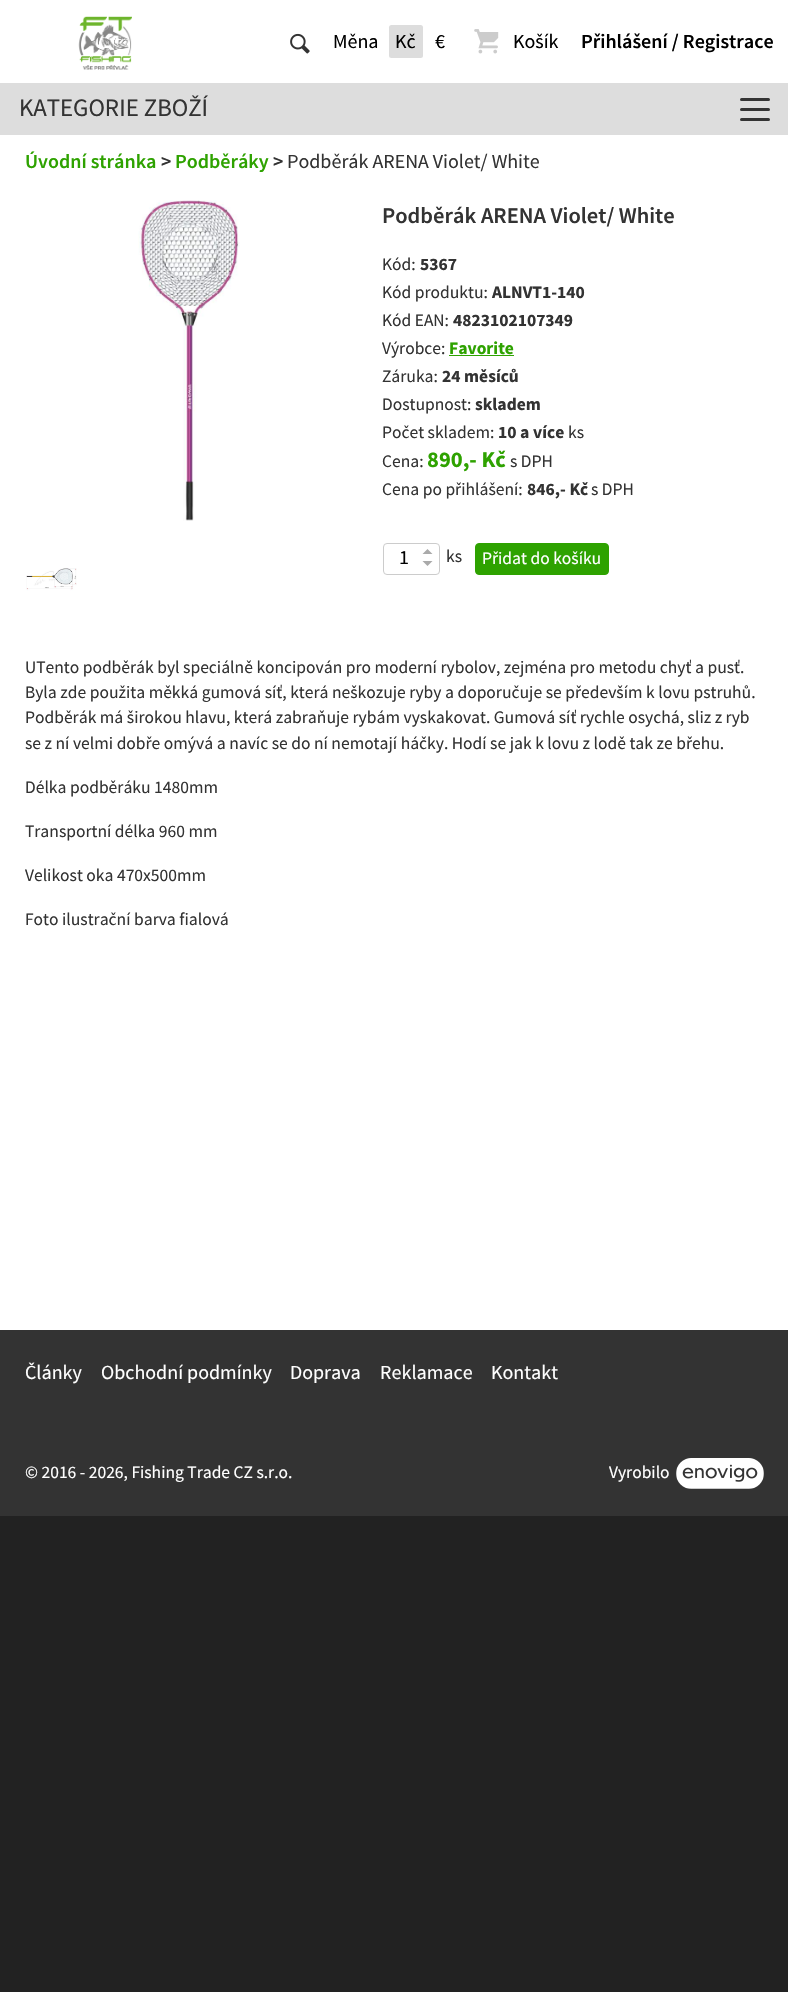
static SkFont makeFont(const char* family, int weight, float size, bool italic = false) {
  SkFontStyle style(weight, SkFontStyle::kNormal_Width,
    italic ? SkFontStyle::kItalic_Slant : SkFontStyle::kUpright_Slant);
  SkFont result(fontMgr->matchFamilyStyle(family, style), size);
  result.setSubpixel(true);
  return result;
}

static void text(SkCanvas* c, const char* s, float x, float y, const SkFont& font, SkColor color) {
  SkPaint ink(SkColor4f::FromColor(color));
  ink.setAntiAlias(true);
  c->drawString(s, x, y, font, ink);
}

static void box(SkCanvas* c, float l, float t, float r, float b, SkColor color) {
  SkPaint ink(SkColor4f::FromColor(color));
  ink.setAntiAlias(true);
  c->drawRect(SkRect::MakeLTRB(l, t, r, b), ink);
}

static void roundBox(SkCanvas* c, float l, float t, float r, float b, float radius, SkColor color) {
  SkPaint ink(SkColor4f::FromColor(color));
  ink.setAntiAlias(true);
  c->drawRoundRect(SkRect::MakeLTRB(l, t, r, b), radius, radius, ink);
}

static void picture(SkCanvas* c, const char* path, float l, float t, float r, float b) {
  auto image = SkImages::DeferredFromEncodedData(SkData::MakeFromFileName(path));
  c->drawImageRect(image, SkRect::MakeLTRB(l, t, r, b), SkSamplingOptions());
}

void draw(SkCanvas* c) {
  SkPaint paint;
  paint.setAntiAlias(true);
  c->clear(0xff222222);
  box(c, 0, 0, 788, 83, 0xffffffff);
  picture(c, "img_01.png", 78, 16, 132, 70);
  picture(c, "img_02.png", 290, 33, 310, 54);
  SkFont face1 = makeFont("Source Sans Pro", 400, 20);
  text(c, "Měna", 333, 48, face1, 0xff000000);
  roundBox(c, 389, 25, 423, 58, 2.5f, 0xffdddddd);
  text(c, "Kč", 395, 48, face1, 0xff000000);
  text(c, "€", 435, 48, face1, 0xff000000);
  picture(c, "img_03.png", 474, 29, 499, 54);
  text(c, "Košík", 513, 48, face1, 0xff000000);
  SkFont face2 = makeFont("Source Sans Pro", 600, 20);
  text(c, "Přihlášení / Registrace", 581, 48, face2, 0xff000000);
  box(c, 0, 83, 788, 135, 0xffdddddd);
  SkFont face3 = makeFont("Source Sans Pro", 400, 25);
  text(c, "KATEGORIE ZBOŽÍ", 19, 116, face3, 0xff333333);
  roundBox(c, 740, 108, 770, 111, 1.5f, 0xff333333);
  roundBox(c, 740, 98, 770, 101, 1.5f, 0xff333333);
  roundBox(c, 740, 118, 770, 121, 1.5f, 0xff333333);
  box(c, 0, 135, 788, 1330, 0xffffffff);
  text(c, "Úvodní stránka", 25, 168, face2, 0xff2ea200);
  text(c, ">", 161, 168, face2, 0xff333333);
  text(c, "Podběráky", 175, 168, face2, 0xff2ea200);
  text(c, ">", 273, 168, face2, 0xff333333);
  text(c, "Podběrák ARENA Violet/ White", 287, 168, face1, 0xff333333);
  picture(c, "img_04.png", 138, 200, 240, 521);
  picture(c, "img_05.png", 26, 568, 77, 591);
  SkFont face4 = makeFont("Source Sans Pro", 600, 22.5f);
  text(c, "Podběrák ARENA Violet/ White", 382, 223, face4, 0xff333333);
  SkFont face5 = makeFont("Source Sans Pro", 400, 17.5f);
  text(c, "Kód:", 382, 270, face5, 0xff333333);
  SkFont face6 = makeFont("Source Sans Pro", 700, 17.5f);
  text(c, "5367", 420, 270, face6, 0xff333333);
  text(c, "Kód produktu:", 382, 298, face5, 0xff333333);
  text(c, "ALNVT1-140", 492, 298, face6, 0xff333333);
  text(c, "Kód EAN:", 382, 326, face5, 0xff333333);
  text(c, "4823102107349", 453, 326, face6, 0xff333333);
  text(c, "Výrobce:", 382, 354, face5, 0xff333333);
  text(c, "Favorite", 449, 354, face6, 0xff2ea200);
  box(c, 449, 355, 514, 356, 0xff2ea200);
  text(c, "Záruka:", 382, 382, face5, 0xff333333);
  text(c, "24 měsíců", 442, 382, face6, 0xff333333);
  text(c, "Dostupnost:", 382, 410, face5, 0xff333333);
  text(c, "skladem", 475, 410, face6, 0xff333333);
  text(c, "Počet skladem:", 382, 438, face5, 0xff333333);
  text(c, "10 a více", 498, 438, face6, 0xff333333);
  text(c, "ks", 568, 438, face5, 0xff333333);
  text(c, "Cena:", 382, 467, face5, 0xff333333);
  SkFont face7 = makeFont("Source Sans Pro", 700, 22.5f);
  text(c, "890,- Kč", 427, 467, face7, 0xff2ea200);
  text(c, "s DPH", 510, 467, face5, 0xff333333);
  text(c, "Cena po přihlášení:", 382, 495, face5, 0xff333333);
  text(c, "846,- Kč", 527, 495, face6, 0xff333333);
  text(c, "s DPH", 591, 495, face5, 0xff333333);
  paint.setStyle(SkPaint::kStroke_Style);
  paint.setStrokeWidth(1);
  paint.setColor(0xffcccccc);
  c->drawRoundRect(SkRect::MakeLTRB(383.5f, 543.5f, 439.5f, 574.5f), 3.5f, 3.5f, paint);
  text(c, "1", 399, 564, face1, 0xff000000);
  paint.setStyle(SkPaint::kFill_Style);
  paint.setColor(0xffaaaaaa);
  c->drawPath(SkPathBuilder().moveTo(432.5f, 554).lineTo(422.5f, 554).lineTo(427.5f, 549).close().moveTo(422.5f, 561).lineTo(432.5f, 561).lineTo(427.5f, 566).close().detach(), paint);
  text(c, "ks", 446, 562, face5, 0xff333333);
  paint.setColor(0xff2ea200);
  c->drawRoundRect(SkRect::MakeLTRB(475.5f, 543.5f, 608.5f, 574.5f), 3.5f, 3.5f, paint);
  paint.setStyle(SkPaint::kStroke_Style);
  c->drawRoundRect(SkRect::MakeLTRB(475.5f, 543.5f, 608.5f, 574.5f), 3.5f, 3.5f, paint);
  text(c, "Přidat do košíku", 482, 564, face5, 0xffffffff);
  text(c, "UTento podběrák byl speciálně koncipován pro moderní rybolov, zejména pro metodu chyť a pusť.", 25, 673, face5, 0xff333333);
  text(c, "Byla zde použita měkká gumová síť, která neškozuje ryby a doporučuje se především k lovu pstruhů.", 25, 698, face5, 0xff333333);
  text(c, "Podběrák má širokou hlavu, která zabraňuje rybám vyskakovat. Gumová síť rychle osychá, sliz z ryb", 25, 723, face5, 0xff333333);
  text(c, "se z ní velmi dobře omývá a navíc se do ní nemotají háčky. Hodí se jak k lovu z lodě tak ze břehu.", 25, 749, face5, 0xff333333);
  text(c, "Délka podběráku 1480mm", 25, 793, face5, 0xff333333);
  text(c, "Transportní délka 960 mm", 25, 837, face5, 0xff333333);
  text(c, "Velikost oka 470x500mm", 25, 881, face5, 0xff333333);
  text(c, "Foto ilustrační barva fialová", 25, 925, face5, 0xff333333);
  box(c, 0, 1330, 788, 1516, 0xff333333);
  text(c, "Články", 25, 1379, face1, 0xffffffff);
  text(c, "Obchodní podmínky", 101, 1379, face1, 0xffffffff);
  text(c, "Doprava", 290, 1379, face1, 0xffffffff);
  text(c, "Reklamace", 380, 1379, face1, 0xffffffff);
  text(c, "Kontakt", 491, 1379, face1, 0xffffffff);
  text(c, "© 2016 - 2026, Fishing Trade CZ s.r.o.", 25, 1478, face5, 0xffffffff);
  text(c, "Vyrobilo", 609, 1478, face5, 0xffffffff);
  picture(c, "img_06.png", 676, 1458, 764, 1489);
}
